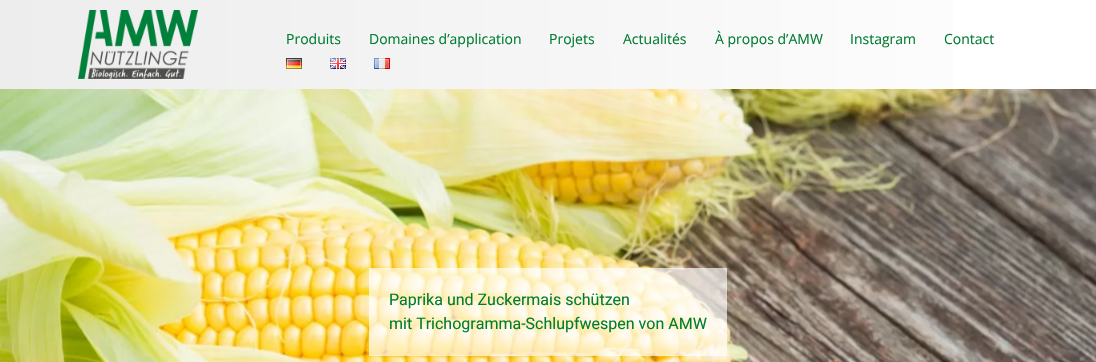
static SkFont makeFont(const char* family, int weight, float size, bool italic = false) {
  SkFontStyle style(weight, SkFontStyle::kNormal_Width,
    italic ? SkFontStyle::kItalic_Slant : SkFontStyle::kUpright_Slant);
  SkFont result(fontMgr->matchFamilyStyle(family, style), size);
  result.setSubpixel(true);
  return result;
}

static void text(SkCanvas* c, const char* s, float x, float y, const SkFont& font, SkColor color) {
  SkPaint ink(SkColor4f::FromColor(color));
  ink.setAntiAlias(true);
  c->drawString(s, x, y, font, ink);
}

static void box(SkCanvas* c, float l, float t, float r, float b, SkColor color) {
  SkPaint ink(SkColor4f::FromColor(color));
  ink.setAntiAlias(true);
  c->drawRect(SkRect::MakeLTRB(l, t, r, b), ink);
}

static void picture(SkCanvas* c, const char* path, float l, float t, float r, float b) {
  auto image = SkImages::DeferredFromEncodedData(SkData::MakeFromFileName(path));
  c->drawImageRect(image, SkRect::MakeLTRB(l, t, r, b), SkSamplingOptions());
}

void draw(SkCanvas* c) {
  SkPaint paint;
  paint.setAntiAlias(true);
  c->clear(0xffffffff);
  {
    const SkColor colors[] = {0xffededed, 0xfff6f6f6, 0xffffffff};
    const float stops[] = {0, 0.53f, 1};
    const SkPoint ends[] = {{0, 45}, {1096, 44}};
    paint.setShader(SkGradientShader::MakeLinear(ends, colors, stops, 3, SkTileMode::kClamp));
    paint.setAlpha(255);
  }
  c->drawRect(SkRect::MakeLTRB(0, 0, 953, 89), paint);
  picture(c, "img_01.png", 78, 10, 198, 79);
  SkFont face1 = makeFont("Open Sans", 400, 14);
  text(c, "Produits", 286, 44, face1, 0xff007d32);
  text(c, "Domaines d’application", 369, 44, face1, 0xff007d32);
  text(c, "Projets", 549, 44, face1, 0xff007d32);
  text(c, "Actualités", 623, 44, face1, 0xff007d32);
  text(c, "À propos d’AMW", 715, 44, face1, 0xff007d32);
  text(c, "Instagram", 850, 44, face1, 0xff007d32);
  text(c, "Contact", 944, 44, face1, 0xff007d32);
  picture(c, "img_02.png", 286, 58, 302, 69);
  picture(c, "img_03.png", 330, 58, 346, 69);
  picture(c, "img_04.png", 374, 58, 390, 69);
  picture(c, "img_05.png", 0, 89, 1096, 362);
  box(c, 369, 268, 727, 356, 0xabffffff);
  SkFont face2 = makeFont("Roboto", 400, 16);
  text(c, "Paprika und Zuckermais schützen", 389, 305, face2, 0xff007d32);
  text(c, "mit Trichogramma-Schlupfwespen von AMW", 389, 329, face2, 0xff007d32);
}
